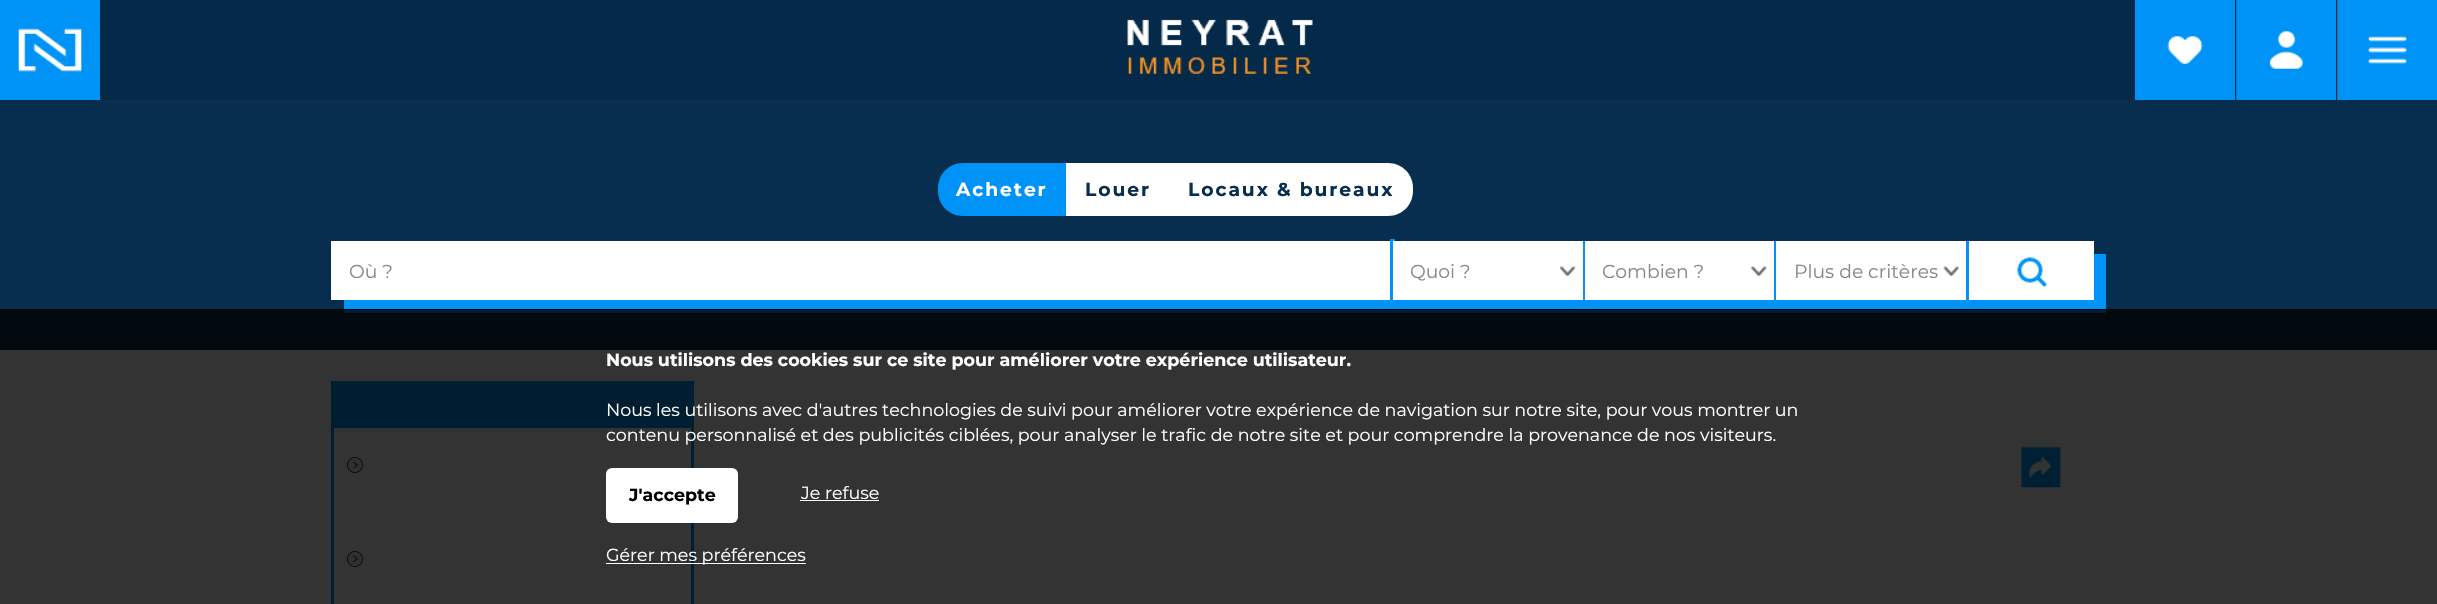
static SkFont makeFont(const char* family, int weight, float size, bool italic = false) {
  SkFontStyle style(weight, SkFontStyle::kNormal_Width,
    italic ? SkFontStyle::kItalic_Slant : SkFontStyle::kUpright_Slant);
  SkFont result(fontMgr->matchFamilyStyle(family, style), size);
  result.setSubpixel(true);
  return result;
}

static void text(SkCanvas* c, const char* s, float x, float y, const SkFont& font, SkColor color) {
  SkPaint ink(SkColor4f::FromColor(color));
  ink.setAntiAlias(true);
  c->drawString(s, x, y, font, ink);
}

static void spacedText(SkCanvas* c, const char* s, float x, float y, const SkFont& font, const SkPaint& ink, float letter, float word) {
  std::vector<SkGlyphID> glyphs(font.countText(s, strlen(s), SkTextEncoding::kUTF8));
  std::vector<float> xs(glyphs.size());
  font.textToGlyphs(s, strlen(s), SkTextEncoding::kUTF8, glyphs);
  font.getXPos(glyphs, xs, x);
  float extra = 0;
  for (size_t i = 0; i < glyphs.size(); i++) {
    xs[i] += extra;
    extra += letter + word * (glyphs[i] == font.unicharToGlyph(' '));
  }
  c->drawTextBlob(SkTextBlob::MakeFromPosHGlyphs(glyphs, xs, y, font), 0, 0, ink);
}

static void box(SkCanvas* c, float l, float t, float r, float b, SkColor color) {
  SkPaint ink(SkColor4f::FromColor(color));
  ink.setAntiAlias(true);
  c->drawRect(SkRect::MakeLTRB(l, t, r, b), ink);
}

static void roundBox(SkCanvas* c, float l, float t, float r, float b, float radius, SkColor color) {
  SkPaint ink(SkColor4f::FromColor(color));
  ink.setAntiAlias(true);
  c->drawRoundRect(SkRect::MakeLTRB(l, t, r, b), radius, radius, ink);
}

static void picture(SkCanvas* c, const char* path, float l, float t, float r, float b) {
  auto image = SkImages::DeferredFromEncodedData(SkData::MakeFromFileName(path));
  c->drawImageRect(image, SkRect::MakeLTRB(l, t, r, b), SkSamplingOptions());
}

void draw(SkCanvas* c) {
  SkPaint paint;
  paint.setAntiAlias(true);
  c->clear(0xffffffff);
  picture(c, "img_01.png", 0, 0, 100, 100);
  box(c, 100, 0, 2338, 100, 0xff052948);
  picture(c, "img_02.png", 1127, 19, 1313, 74);
  picture(c, "img_03.png", 2135, 0, 2235, 100);
  picture(c, "img_05.png", 2337, 0, 2437, 100);
  picture(c, "img_04.png", 2236, 0, 2338, 100);
  box(c, 2336, 0, 2337, 100, 0xff052948);
  box(c, 0, 100, 2437, 350, 0xff082e4f);
  paint.setColor(0xff0093f7);
  c->drawPath(SkPathBuilder().moveTo(963, 163).lineTo(1066, 163).lineTo(1066, 216).lineTo(963, 216).cubicTo(949, 216, 938, 205, 938, 191).lineTo(938, 188).cubicTo(938, 174, 949, 163, 963, 163).close().detach(), paint);
  SkFont face1 = makeFont("Montserrat", 700, 18.75f);
  paint.setColor(0xffffffff);
  spacedText(c, "Acheter", 956, 196, face1, paint, 1.9f, 0);
  box(c, 1066, 163, 1170, 216, 0xffffffff);
  paint.setColor(0xff082e4f);
  spacedText(c, "Louer", 1085, 196, face1, paint, 1.9f, 0);
  paint.setColor(0xffffffff);
  c->drawPath(SkPathBuilder().moveTo(1170, 163).lineTo(1388, 163).cubicTo(1402, 163, 1413, 174, 1413, 188).lineTo(1413, 191).cubicTo(1413, 205, 1402, 216, 1388, 216).lineTo(1170, 216).close().detach(), paint);
  paint.setColor(0xff082e4f);
  spacedText(c, "Locaux & bureaux", 1188, 196, face1, paint, 1.9f, 0);
  paint.setColor(0xff0093f7);
  c->drawPath(SkPathBuilder().moveTo(344, 300).lineTo(344, 313).lineTo(2106, 313).lineTo(2106, 254).lineTo(2094, 254).lineTo(2094, 300).close().detach(), paint);
  box(c, 1390, 239, 1395, 303, 0xff0093f7);
  box(c, 331, 241, 1390, 300, 0xffffffff);
  SkFont face2 = makeFont("Montserrat", 400, 18.75f);
  text(c, "Où ?", 349, 278, face2, 0xff888888);
  box(c, 1393, 241, 1583, 300, 0xffffffff);
  picture(c, "img_06.png", 1560, 266, 1576, 277);
  box(c, 1583, 241, 1585, 300, 0xff0093f7);
  text(c, "Quoi ?", 1410, 278, face2, 0xff888888);
  box(c, 1585, 241, 1774, 300, 0xffffffff);
  picture(c, "img_07.png", 1751, 266, 1767, 277);
  box(c, 1774, 241, 1776, 300, 0xff0093f7);
  text(c, "Combien ?", 1602, 278, face2, 0xff888888);
  box(c, 1776, 241, 1966, 300, 0xffffffff);
  picture(c, "img_08.png", 1943, 266, 1959, 277);
  box(c, 1966, 241, 1969, 300, 0xff0093f7);
  text(c, "Plus de critères", 1794, 278, face2, 0xff888888);
  box(c, 1969, 241, 2094, 300, 0xffffffff);
  picture(c, "img_09.png", 2017, 257, 2047, 287);
  paint.setStyle(SkPaint::kStroke_Style);
  paint.setStrokeWidth(3);
  c->drawRect(SkRect::MakeLTRB(332.5f, 382.5f, 692.5f, 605.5f), paint);
  box(c, 334, 384, 691, 428, 0xff0093f7);
  picture(c, "img_10.png", 347, 457, 363, 473);
  picture(c, "img_11.png", 347, 551, 363, 567);
  picture(c, "img_12.png", 2021, 446, 2062, 488);
  box(c, 0, 310, 2437, 604, 0xcc000000);
  box(c, 0, 309, 2437, 310, 0xff000000);
  SkFont face3 = makeFont("Montserrat", 700, 17.5f);
  text(c, "Nous utilisons des cookies sur ce site pour améliorer votre expérience utilisateur.", 606, 366, face3, 0xffffffff);
  SkFont face4 = makeFont("Montserrat", 400, 17.5f);
  text(c, "Nous les utilisons avec d'autres technologies de suivi pour améliorer votre expérience de navigation sur notre site, pour vous montrer un", 606, 416, face4, 0xffffffff);
  text(c, "contenu personnalisé et des publicités ciblées, pour analyser le trafic de notre site et pour comprendre la provenance de nos visiteurs.", 606, 441, face4, 0xffffffff);
  roundBox(c, 606, 468, 738, 523, 6, 0xffffffff);
  text(c, "J'accepte", 629, 501, face3, 0xff000000);
  text(c, "Je refuse", 801, 499, face4, 0xffffffff);
  box(c, 800, 500, 879, 501, 0xffffffff);
  box(c, 606, 563, 806, 564, 0xffffffff);
  text(c, "Gérer mes préférences", 606, 561, face4, 0xffffffff);
}
